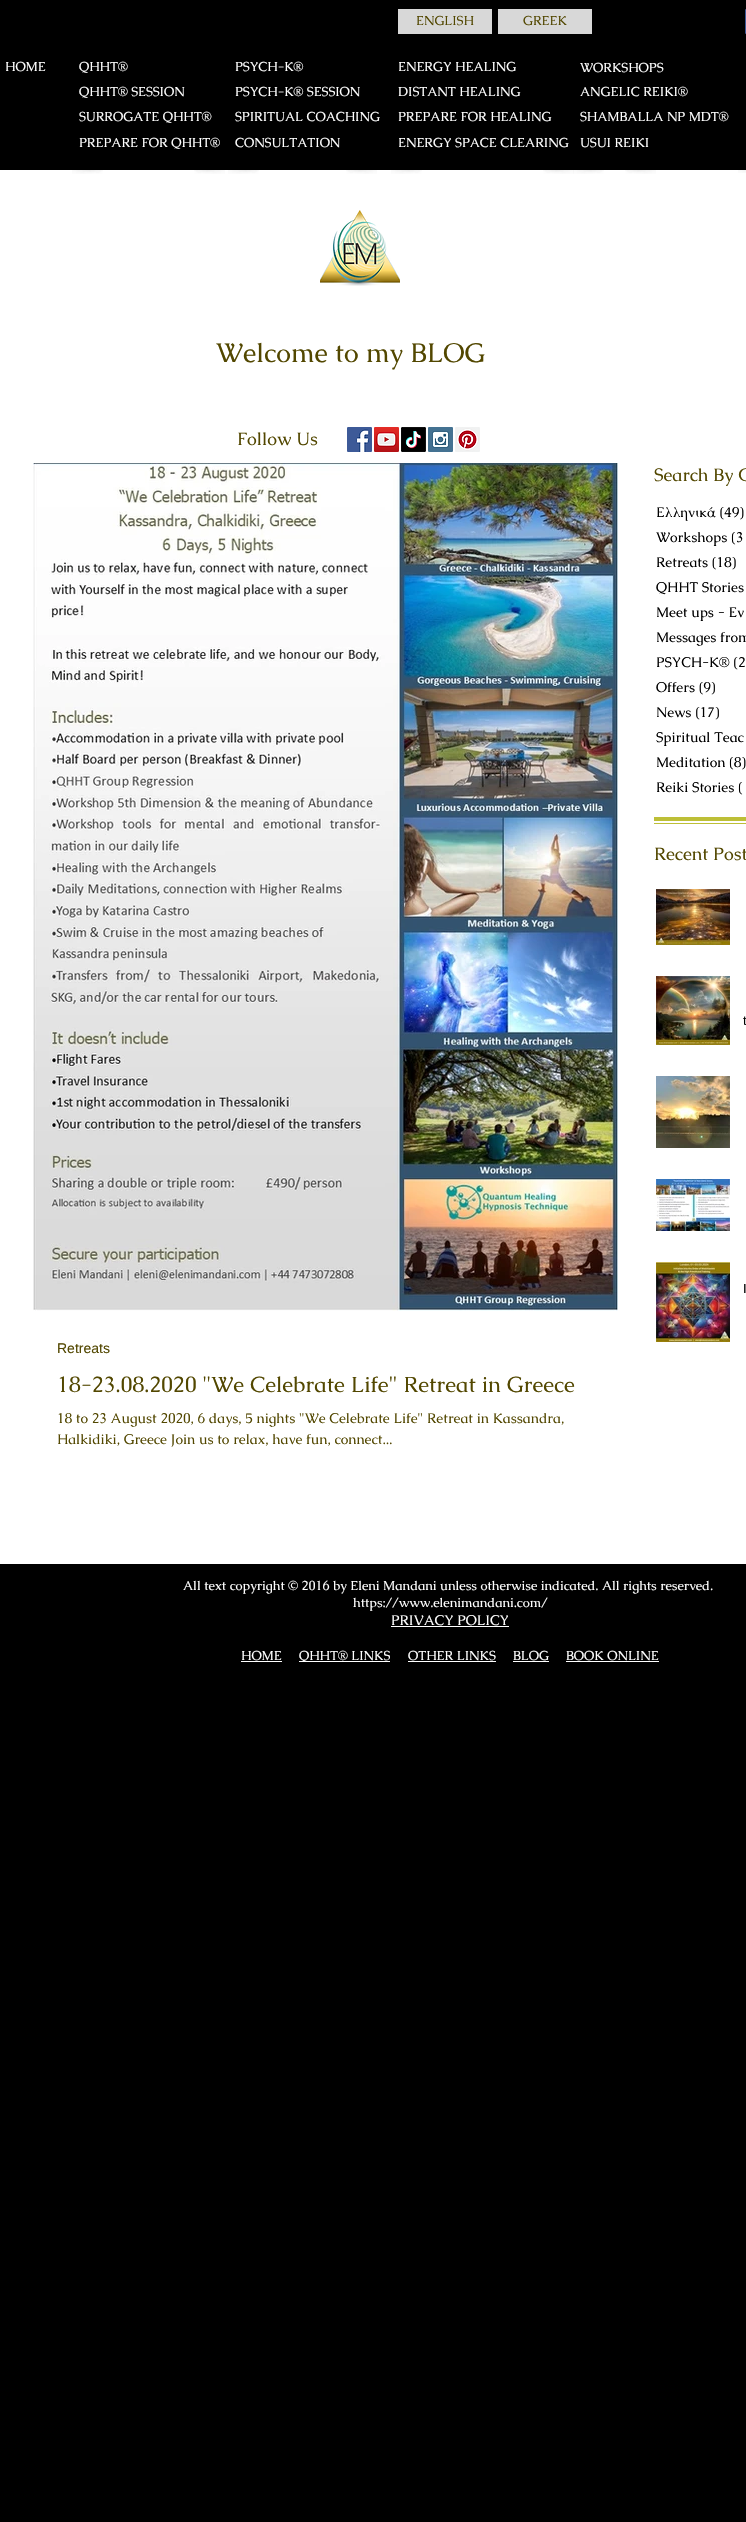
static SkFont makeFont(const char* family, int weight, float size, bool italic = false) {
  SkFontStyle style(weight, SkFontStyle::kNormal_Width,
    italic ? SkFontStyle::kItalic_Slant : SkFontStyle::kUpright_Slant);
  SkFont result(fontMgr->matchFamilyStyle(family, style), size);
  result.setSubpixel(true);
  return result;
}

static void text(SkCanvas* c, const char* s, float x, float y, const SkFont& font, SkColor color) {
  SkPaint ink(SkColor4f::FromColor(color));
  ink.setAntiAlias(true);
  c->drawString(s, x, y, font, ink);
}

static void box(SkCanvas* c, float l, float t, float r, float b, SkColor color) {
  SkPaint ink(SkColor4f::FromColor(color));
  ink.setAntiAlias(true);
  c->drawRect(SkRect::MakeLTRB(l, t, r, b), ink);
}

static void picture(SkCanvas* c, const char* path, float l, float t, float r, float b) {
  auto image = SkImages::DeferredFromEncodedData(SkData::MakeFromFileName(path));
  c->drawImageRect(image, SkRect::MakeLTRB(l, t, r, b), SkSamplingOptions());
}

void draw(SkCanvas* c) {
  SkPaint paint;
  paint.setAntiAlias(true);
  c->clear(0xff000000);
  box(c, 398, 9, 492, 34, 0xffd8d8d8);
  SkFont face1 = makeFont("Caudex", 400, 13);
  text(c, "ENGLISH", 416, 25, face1, 0xff524700);
  box(c, 498, 9, 592, 34, 0xffd8d8d8);
  text(c, "GREEK", 523, 25, face1, 0xff524700);
  picture(c, "img_01.png", 745, 9, 746, 34);
  text(c, "HOME", 5, 71, face1, 0xffffffff);
  text(c, "QHHT®", 79, 71, face1, 0xffffffff);
  text(c, "PSYCH-K®", 235, 71, face1, 0xffffffff);
  text(c, "ENERGY HEALING", 398, 71, face1, 0xffffffff);
  text(c, "WORKSHOPS", 580, 72, face1, 0xffffffff);
  text(c, "QHHT® SESSION", 79, 96, face1, 0xffffffff);
  text(c, "PSYCH-K® SESSION", 235, 96, face1, 0xffffffff);
  text(c, "DISTANT HEALING", 398, 96, face1, 0xffffffff);
  text(c, "ANGELIC REIKI®", 580, 96, face1, 0xffffffff);
  text(c, "SURROGATE QHHT®", 79, 121, face1, 0xffffffff);
  text(c, "SPIRITUAL COACHING", 235, 121, face1, 0xffffffff);
  text(c, "PREPARE FOR HEALING", 398, 121, face1, 0xffffffff);
  text(c, "SHAMBALLA NP MDT®", 580, 121, face1, 0xffffffff);
  text(c, "PREPARE FOR QHHT®", 79, 147, face1, 0xffffffff);
  box(c, 0, 170, 746, 1564, 0xffffffff);
  picture(c, "img_02.png", 72, 170, 103, 174);
  picture(c, "img_03.png", 194, 170, 225, 174);
  text(c, "CONSULTATION", 235, 147, face1, 0xffffffff);
  picture(c, "img_02.png", 228, 170, 259, 174);
  picture(c, "img_03.png", 346, 170, 377, 174);
  text(c, "ENERGY SPACE CLEARING", 398, 147, face1, 0xffffffff);
  picture(c, "img_02.png", 391, 170, 422, 174);
  picture(c, "img_03.png", 543, 170, 574, 174);
  text(c, "USUI REIKΙ", 580, 147, face1, 0xffffffff);
  picture(c, "img_04.png", 573, 170, 604, 174);
  picture(c, "img_03.png", 625, 170, 656, 174);
  picture(c, "img_05.png", 738, 170, 746, 173);
  picture(c, "img_06.png", 320, 210, 400, 286);
  SkFont face2 = makeFont("Caudex", 400, 27);
  text(c, "Welcome to my BLOG", 216, 362, face2, 0xff524700);
  SkFont face3 = makeFont("Caudex", 400, 18);
  text(c, "Search By C", 654, 481, face3, 0xff524700);
  SkFont face4 = makeFont("Caudex", 400, 14);
  text(c, "Ελληνικά (49)", 656, 517, face4, 0xff000000);
  text(c, "Workshops (3", 656, 542, face4, 0xff000000);
  text(c, "Retreats (18)", 656, 567, face4, 0xff000000);
  text(c, "QHHT Stories", 656, 592, face4, 0xff000000);
  text(c, "Meet ups - Ev", 656, 617, face4, 0xff000000);
  text(c, "Messages from", 656, 642, face4, 0xff000000);
  text(c, "PSYCH-K® (2", 656, 667, face4, 0xff000000);
  text(c, "Offers (9)", 656, 692, face4, 0xff000000);
  text(c, "News (17)", 656, 717, face4, 0xff000000);
  text(c, "Spiritual Teac", 656, 742, face4, 0xff000000);
  text(c, "Meditation (8)", 656, 767, face4, 0xff000000);
  text(c, "Reiki Stories (", 656, 792, face4, 0xff000000);
  box(c, 654, 817, 746, 821, 0xffbdbf37);
  box(c, 654, 823, 746, 824, 0xffbdbf37);
  text(c, "Recent Post", 654, 860, face3, 0xff524700);
  picture(c, "img_07.png", 656, 889, 730, 945);
  picture(c, "img_08.png", 656, 976, 730, 1045);
  SkFont face5 = makeFont("Liberation Sans", 400, 13);
  text(c, "t", 743, 1025, face5, 0xff000000);
  picture(c, "img_09.png", 656, 1076, 730, 1148);
  picture(c, "img_10.png", 656, 1179, 730, 1231);
  picture(c, "img_11.png", 656, 1262, 730, 1342);
  text(c, "I", 743, 1293, face5, 0xff000000);
  text(c, "Follow Us", 237, 445, face3, 0xff524700);
  picture(c, "img_12.png", 347, 427, 372, 452);
  picture(c, "img_13.png", 374, 427, 399, 452);
  picture(c, "img_14.png", 401, 427, 426, 452);
  picture(c, "img_15.png", 428, 427, 453, 452);
  picture(c, "img_16.png", 455, 427, 480, 452);
  picture(c, "img_17.png", 33, 463, 618, 1311);
  SkFont face6 = makeFont("Liberation Sans", 400, 14);
  text(c, "Retreats", 57, 1353, face6, 0xff524700);
  SkFont face7 = makeFont("Caudex", 400, 22);
  text(c, "18-23.08.2020 \"We Celebrate Life\" Retreat in Greece", 57, 1392, face7, 0xff524700);
  text(c, "18 to 23 August 2020, 6 days, 5 nights \"We Celebrate Life\" Retreat in Kassandra,", 57, 1423, face4, 0xff524700);
  text(c, "Halkidiki, Greece Join us to relax, have fun, connect...", 57, 1444, face4, 0xff524700);
  text(c, "All text copyright © 2016 by Eleni Mandani unless otherwise indicated. All rights reserved.", 183, 1590, face1, 0xffffffff);
  text(c, "https://www.elenimandani.com/", 353, 1607, face1, 0xffffffff);
  text(c, "PRIVACY POLICY", 391, 1625, face4, 0xffffffff);
  box(c, 391, 1626, 509, 1627, 0xffffffff);
  text(c, "HOME", 241, 1660, face1, 0xffffffff);
  box(c, 241, 1661, 282, 1662, 0xffffffff);
  box(c, 299, 1661, 390, 1662, 0xffffffff);
  text(c, "QHHT® LINKS", 299, 1660, face1, 0xffffffff);
  text(c, "OTHER LINKS", 408, 1660, face1, 0xffffffff);
  box(c, 408, 1661, 496, 1662, 0xffffffff);
  text(c, "BLOG", 513, 1660, face1, 0xffffffff);
  box(c, 513, 1661, 549, 1662, 0xffffffff);
  text(c, "BOOK ONLINE", 566, 1660, face1, 0xffffffff);
  box(c, 566, 1661, 659, 1662, 0xffffffff);
}
